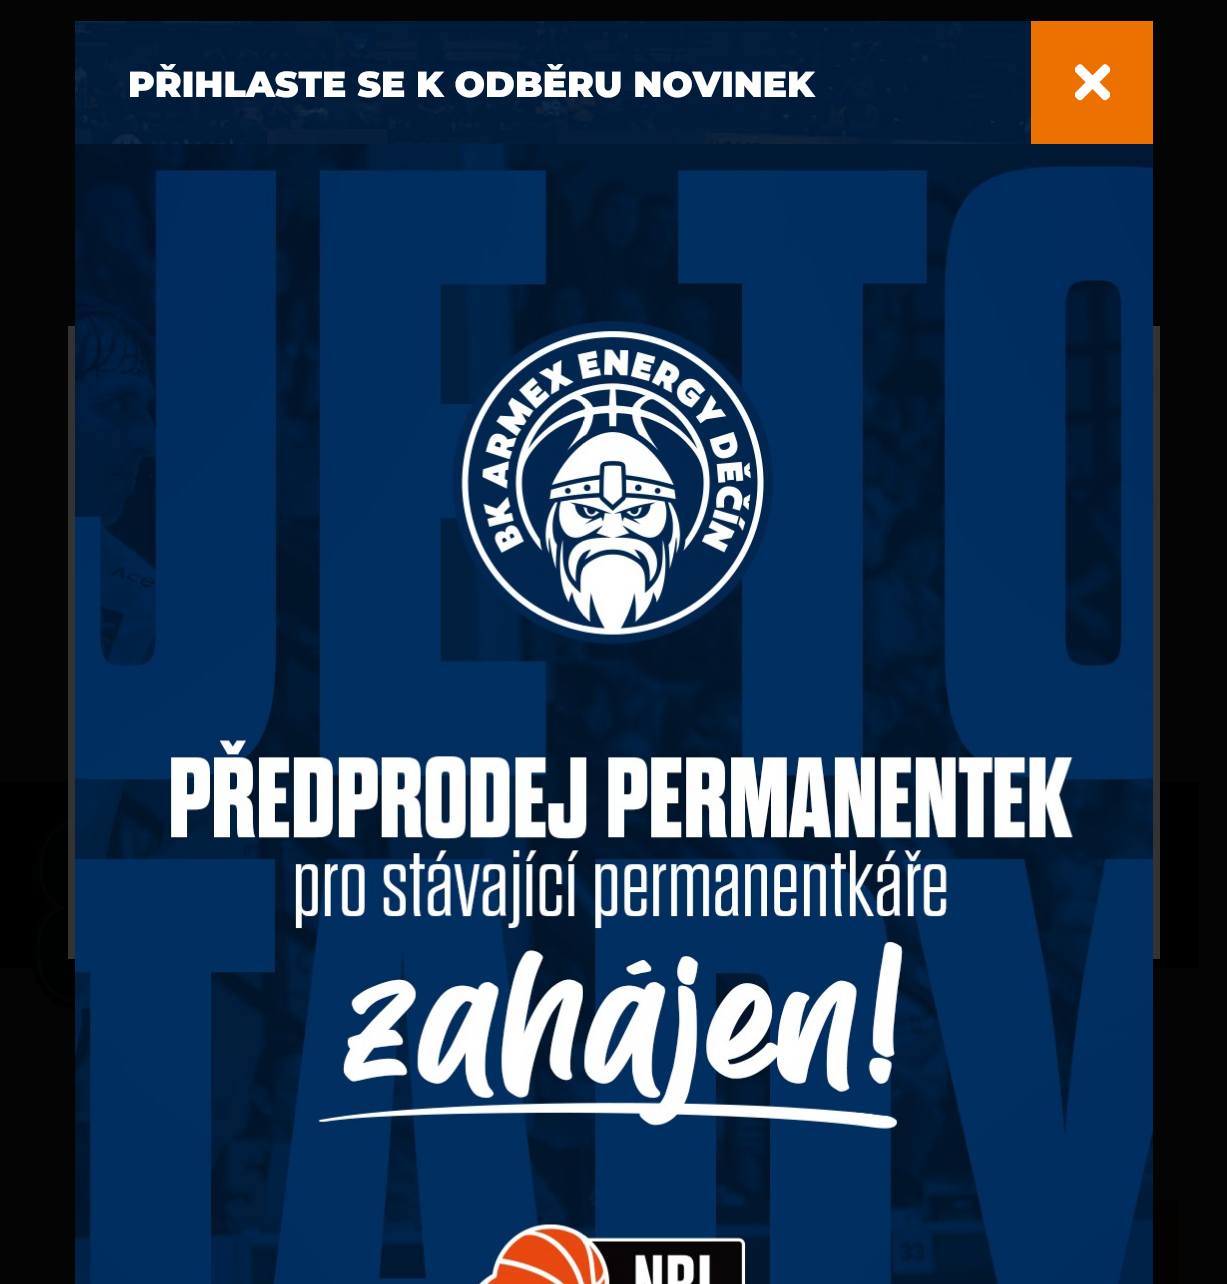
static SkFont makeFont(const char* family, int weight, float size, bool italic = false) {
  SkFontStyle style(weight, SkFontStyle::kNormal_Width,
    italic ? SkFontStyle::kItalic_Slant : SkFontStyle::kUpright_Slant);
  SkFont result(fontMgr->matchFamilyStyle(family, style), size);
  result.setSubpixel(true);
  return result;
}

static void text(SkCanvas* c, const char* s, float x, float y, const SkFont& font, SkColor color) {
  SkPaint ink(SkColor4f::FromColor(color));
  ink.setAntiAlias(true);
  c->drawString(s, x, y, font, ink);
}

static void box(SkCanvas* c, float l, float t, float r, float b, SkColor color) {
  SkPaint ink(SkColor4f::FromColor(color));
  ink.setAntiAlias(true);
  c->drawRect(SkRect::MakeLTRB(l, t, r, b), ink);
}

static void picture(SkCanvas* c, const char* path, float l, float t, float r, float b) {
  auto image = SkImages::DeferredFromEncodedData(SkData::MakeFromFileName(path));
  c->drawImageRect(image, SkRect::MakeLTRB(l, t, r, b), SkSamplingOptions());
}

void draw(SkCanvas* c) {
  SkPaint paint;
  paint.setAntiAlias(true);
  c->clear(0xff040404);
  picture(c, "img_01.png", 75, 21, 1031, 144);
  SkFont face1 = makeFont("Montserrat", 900, 36.1f);
  text(c, "PŘIHLASTE SE K ODBĚRU NOVINEK", 128, 97, face1, 0xffffffff);
  box(c, 1031, 21, 1153, 144, 0xffec7100);
  picture(c, "img_02.png", 1075, 64, 1110, 101);
  box(c, 0, 782, 1199, 968, 0xff000001);
  picture(c, "img_05.png", 30, 814, 75, 1011);
  box(c, 68, 326, 1160, 959, 0xff333333);
  picture(c, "img_03.png", 75, 144, 1153, 1284);
  picture(c, "img_04.png", 1153, 364, 1160, 523);
  box(c, 1153, 1201, 1178, 1284, 0xff040200);
}
